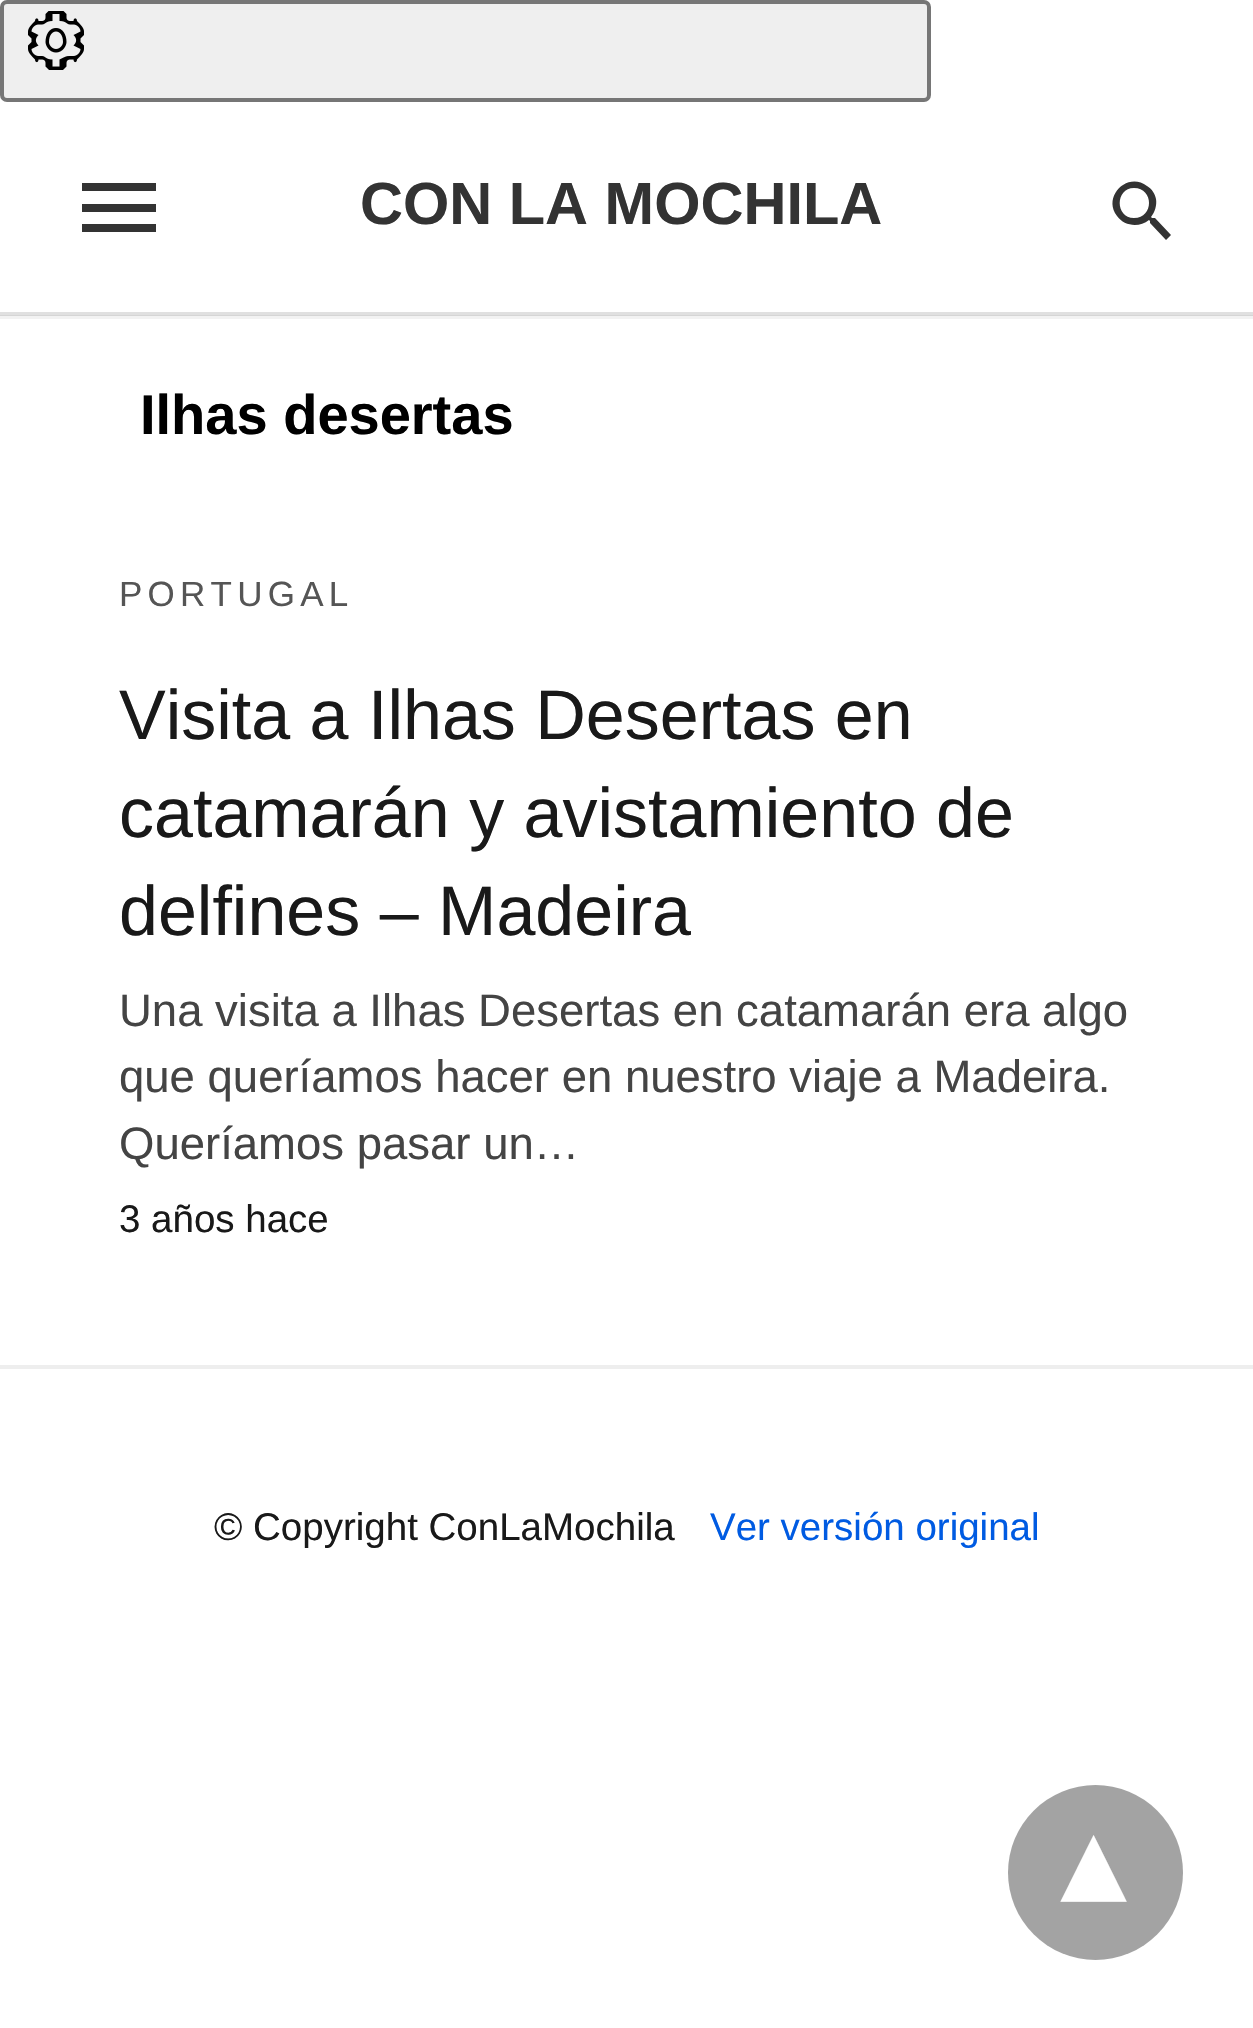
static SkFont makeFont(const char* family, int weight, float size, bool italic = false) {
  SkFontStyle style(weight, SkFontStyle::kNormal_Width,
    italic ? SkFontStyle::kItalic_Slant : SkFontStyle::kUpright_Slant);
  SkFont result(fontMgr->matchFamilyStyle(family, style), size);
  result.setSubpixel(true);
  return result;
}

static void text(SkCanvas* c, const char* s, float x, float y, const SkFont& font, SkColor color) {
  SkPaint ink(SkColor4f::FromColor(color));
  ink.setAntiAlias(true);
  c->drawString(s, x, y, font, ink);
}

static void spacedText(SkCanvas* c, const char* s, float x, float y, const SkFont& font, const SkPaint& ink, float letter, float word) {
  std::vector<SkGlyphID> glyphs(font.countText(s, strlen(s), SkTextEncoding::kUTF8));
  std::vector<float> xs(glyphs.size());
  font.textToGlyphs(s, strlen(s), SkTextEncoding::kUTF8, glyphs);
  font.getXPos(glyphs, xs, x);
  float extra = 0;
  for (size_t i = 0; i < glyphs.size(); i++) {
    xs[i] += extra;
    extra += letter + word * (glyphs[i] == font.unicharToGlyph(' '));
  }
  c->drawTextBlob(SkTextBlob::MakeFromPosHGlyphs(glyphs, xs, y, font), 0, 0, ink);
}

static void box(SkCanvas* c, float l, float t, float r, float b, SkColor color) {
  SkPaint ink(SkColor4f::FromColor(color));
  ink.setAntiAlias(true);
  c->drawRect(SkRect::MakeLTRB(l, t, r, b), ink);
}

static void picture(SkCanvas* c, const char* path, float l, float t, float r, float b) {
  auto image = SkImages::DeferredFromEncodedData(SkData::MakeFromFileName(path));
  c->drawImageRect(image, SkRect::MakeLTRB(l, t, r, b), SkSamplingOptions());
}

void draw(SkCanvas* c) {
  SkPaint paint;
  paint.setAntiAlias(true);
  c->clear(0xffffffff);
  box(c, 0, 316, 1253, 319, 0xfff2f2f2);
  paint.setColor(0xffefefef);
  c->drawRoundRect(SkRect::MakeLTRB(2, 2, 929, 100), 5, 5, paint);
  paint.setStyle(SkPaint::kStroke_Style);
  paint.setStrokeWidth(4);
  paint.setColor(0xff767676);
  c->drawRoundRect(SkRect::MakeLTRB(2, 2, 929, 100), 5, 5, paint);
  picture(c, "img_01.png", 28, 11, 84, 70);
  box(c, 0, 312, 1253, 315, 0xffe0e0e0);
  box(c, 0, 315, 1253, 316, 0xffd5d5d5);
  paint.setStyle(SkPaint::kFill_Style);
  paint.setColor(0xff333333);
  c->drawPath(SkPathBuilder().moveTo(82, 183).lineTo(156, 183).lineTo(156, 191).lineTo(82, 191).close().moveTo(82, 212).lineTo(82, 204).lineTo(156, 204).lineTo(156, 212).close().moveTo(82, 232).lineTo(82, 224).lineTo(156, 224).lineTo(156, 232).close().detach(), paint);
  SkFont face1 = makeFont("Liberation Sans", 700, 59.5f);
  text(c, "CON LA MOCHILA", 360, 224, face1, 0xff333333);
  c->drawPath(SkPathBuilder().moveTo(1134, 218).cubicTo(1154, 218, 1154, 188, 1134, 188).cubicTo(1115, 188, 1115, 218, 1134, 218).close().moveTo(1155, 218).lineTo(1171, 235).lineTo(1166, 240).lineTo(1150, 223).lineTo(1150, 221).lineTo(1149, 220).cubicTo(1139, 228, 1124, 226, 1117, 216).cubicTo(1102, 196, 1128, 171, 1147, 186).cubicTo(1152, 189, 1155, 194, 1156, 199).cubicTo(1157, 205, 1155, 212, 1151, 217).lineTo(1152, 218).close().detach(), paint);
  SkFont face2 = makeFont("Liberation Sans", 700, 56);
  text(c, "Ilhas desertas", 140, 434, face2, 0xff000000);
  SkFont face3 = makeFont("Liberation Sans", 400, 35);
  paint.setColor(0xff555555);
  spacedText(c, "PORTUGAL", 119, 606, face3, paint, 5.25f, 0);
  SkFont face4 = makeFont("Liberation Sans", 400, 70);
  text(c, "Visita a Ilhas Desertas en", 119, 739, face4, 0xff191919);
  text(c, "catamarán y avistamiento de", 119, 837, face4, 0xff191919);
  text(c, "delfines – Madeira", 119, 935, face4, 0xff191919);
  SkFont face5 = makeFont("Liberation Sans", 400, 45.5f);
  text(c, "Una visita a Ilhas Desertas en catamarán era algo", 119, 1026, face5, 0xff444444);
  text(c, "que queríamos hacer en nuestro viaje a Madeira.", 119, 1092, face5, 0xff444444);
  text(c, "Queríamos pasar un…", 119, 1159, face5, 0xff444444);
  SkFont face6 = makeFont("Liberation Sans", 400, 38.5f);
  text(c, "3 años hace", 119, 1232, face6, 0xff191919);
  box(c, 0, 1365, 1253, 1369, 0xffeeeeee);
  text(c, "© Copyright ConLaMochila", 214, 1540, face6, 0xff191919);
  text(c, "Ver versión original", 710, 1540, face6, 0xff005be2);
  paint.setColor(0xffa3a3a3);
  c->drawCircle(1095.5f, 1872.5f, 87.5f, paint);
  SkFont face7 = makeFont("DejaVu Sans", 700, 122);
  c->save();
  c->rotate(180, 1126, 1836);
  text(c, "▾", 1126, 1836, face7, 0xffffffff);
  c->restore();
}
